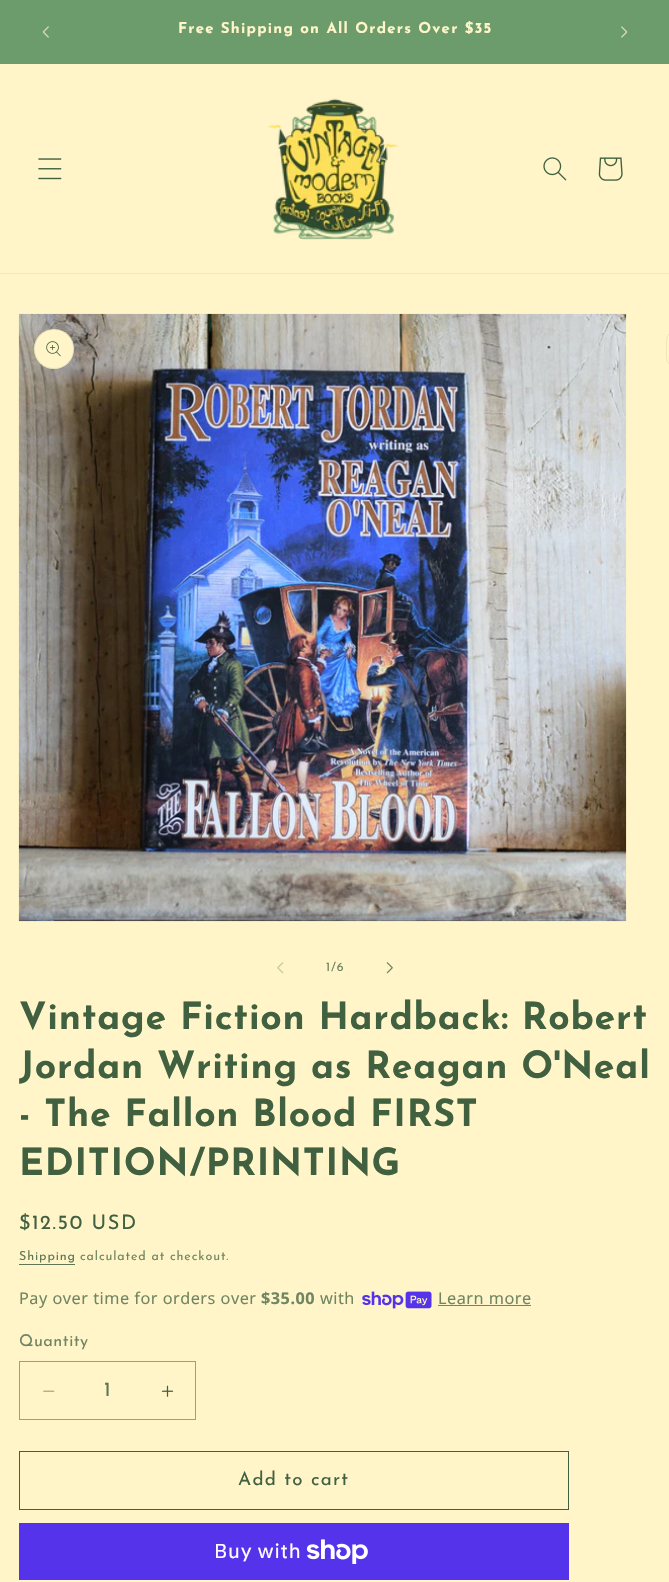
static SkFont makeFont(const char* family, int weight, float size, bool italic = false) {
  SkFontStyle style(weight, SkFontStyle::kNormal_Width,
    italic ? SkFontStyle::kItalic_Slant : SkFontStyle::kUpright_Slant);
  SkFont result(fontMgr->matchFamilyStyle(family, style), size);
  result.setSubpixel(true);
  return result;
}

static void text(SkCanvas* c, const char* s, float x, float y, const SkFont& font, SkColor color) {
  SkPaint ink(SkColor4f::FromColor(color));
  ink.setAntiAlias(true);
  c->drawString(s, x, y, font, ink);
}

static void spacedText(SkCanvas* c, const char* s, float x, float y, const SkFont& font, const SkPaint& ink, float letter, float word) {
  std::vector<SkGlyphID> glyphs(font.countText(s, strlen(s), SkTextEncoding::kUTF8));
  std::vector<float> xs(glyphs.size());
  font.textToGlyphs(s, strlen(s), SkTextEncoding::kUTF8, glyphs);
  font.getXPos(glyphs, xs, x);
  float extra = 0;
  for (size_t i = 0; i < glyphs.size(); i++) {
    xs[i] += extra;
    extra += letter + word * (glyphs[i] == font.unicharToGlyph(' '));
  }
  c->drawTextBlob(SkTextBlob::MakeFromPosHGlyphs(glyphs, xs, y, font), 0, 0, ink);
}

static void box(SkCanvas* c, float l, float t, float r, float b, SkColor color) {
  SkPaint ink(SkColor4f::FromColor(color));
  ink.setAntiAlias(true);
  c->drawRect(SkRect::MakeLTRB(l, t, r, b), ink);
}

static void picture(SkCanvas* c, const char* path, float l, float t, float r, float b) {
  auto image = SkImages::DeferredFromEncodedData(SkData::MakeFromFileName(path));
  c->drawImageRect(image, SkRect::MakeLTRB(l, t, r, b), SkSamplingOptions());
}

void draw(SkCanvas* c) {
  SkPaint paint;
  paint.setAntiAlias(true);
  c->clear(0xfffff5c9);
  box(c, 0, 0, 669, 64, 0xff6c9c6c);
  picture(c, "img_01.png", 42, 26, 49, 38);
  SkFont face1 = makeFont("Josefin Sans", 700, 15);
  paint.setColor(0xfffff5c9);
  spacedText(c, "Free Shipping on All Orders Over $35", 178, 33, face1, paint, 1.25f, 0);
  picture(c, "img_02.png", 621, 26, 628, 38);
  box(c, 0, 273, 669, 274, 0xfff0e9be);
  picture(c, "img_03.png", 38, 158, 62, 180);
  picture(c, "img_04.png", 267, 98, 399, 240);
  picture(c, "img_05.png", 543, 157, 567, 181);
  picture(c, "img_06.png", 598, 157, 623, 181);
  picture(c, "img_07.png", 18, 313, 627, 922);
  c->drawCircle(54, 349, 20, paint);
  paint.setStyle(SkPaint::kStroke_Style);
  paint.setStrokeWidth(1);
  paint.setColor(0x1a406040);
  c->drawCircle(54, 349, 19.5f, paint);
  picture(c, "img_08.png", 46, 341, 61, 357);
  paint.setColor(0xffece6bb);
  c->drawRoundRect(SkRect::MakeLTRB(666.5f, 329.5f, 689.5f, 368.5f), 19.5f, 19.5f, paint);
  picture(c, "img_09.png", 277, 962, 284, 974);
  SkFont face2 = makeFont("Josefin Sans", 400, 12.5f);
  paint.setStyle(SkPaint::kFill_Style);
  paint.setColor(0xff708562);
  spacedText(c, "1/6", 326, 971, face2, paint, 0.9f, 0);
  picture(c, "img_10.png", 386, 962, 393, 974);
  SkFont face3 = makeFont("Josefin Sans", 700, 37.5f);
  paint.setColor(0xff406040);
  spacedText(c, "Vintage Fiction Hardback: Robert", 19, 1029, face3, paint, 0.75f, 0);
  spacedText(c, "Jordan Writing as Reagan O'Neal", 19, 1078, face3, paint, 0.75f, 0);
  spacedText(c, "- The Fallon Blood FIRST", 19, 1126, face3, paint, 0.75f, 0);
  spacedText(c, "EDITION/PRINTING", 19, 1175, face3, paint, 0.75f, 0);
  SkFont face4 = makeFont("Josefin Sans", 400, 20);
  spacedText(c, "$12.50 USD", 19, 1229, face4, paint, 1.6f, 0);
  paint.setColor(0xff5d7655);
  spacedText(c, "Shipping", 19, 1260, face2, paint, 0.9f, 0);
  box(c, 19, 1264, 75, 1265, 0xff5d7655);
  paint.setColor(0xff708562);
  spacedText(c, "calculated at checkout.", 80, 1260, face2, paint, 0.9f, 0);
  SkFont face5 = makeFont("Noto Sans", 400, 16.25f);
  spacedText(c, "Pay over time for orders over", 19, 1304, face5, paint, 0.5f, 0);
  SkFont face6 = makeFont("Noto Sans", 700, 16.25f);
  spacedText(c, "$35.00", 261, 1304, face6, paint, 0.5f, 0);
  spacedText(c, "with", 320, 1304, face5, paint, 0.5f, 0);
  picture(c, "img_11.png", 362, 1291, 432, 1309);
  spacedText(c, "Learn more", 438, 1304, face5, paint, 0.5f, 0);
  box(c, 438, 1305, 531, 1306, 0xff708562);
  SkFont face7 = makeFont("Josefin Sans", 400, 16.25f);
  spacedText(c, "Quantity", 19, 1346, face7, paint, 0.5f, 0);
  picture(c, "img_12.png", 43, 1390, 55, 1392);
  picture(c, "img_13.png", 161, 1385, 174, 1397);
  paint.setStyle(SkPaint::kStroke_Style);
  paint.setColor(0xff96a37e);
  c->drawRect(SkRect::MakeLTRB(19.5f, 1361.5f, 195.5f, 1419.5f), paint);
  text(c, "1", 104, 1396, face4, 0xff5d7655);
  paint.setColor(0xff406040);
  c->drawRect(SkRect::MakeLTRB(19.5f, 1451.5f, 568.5f, 1509.5f), paint);
  SkFont face8 = makeFont("Josefin Sans", 400, 18.75f);
  paint.setStyle(SkPaint::kFill_Style);
  spacedText(c, "Add to cart", 238, 1485, face8, paint, 1.25f, 0);
  box(c, 19, 1523, 569, 1580, 0xff5433eb);
  SkFont face9 = makeFont("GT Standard", 400, 20);
  paint.setColor(0xffffffff);
  spacedText(c, "Buy with", 214, 1558, face9, paint, 0.75f, 0);
  picture(c, "img_14.png", 306, 1539, 368, 1564);
}
